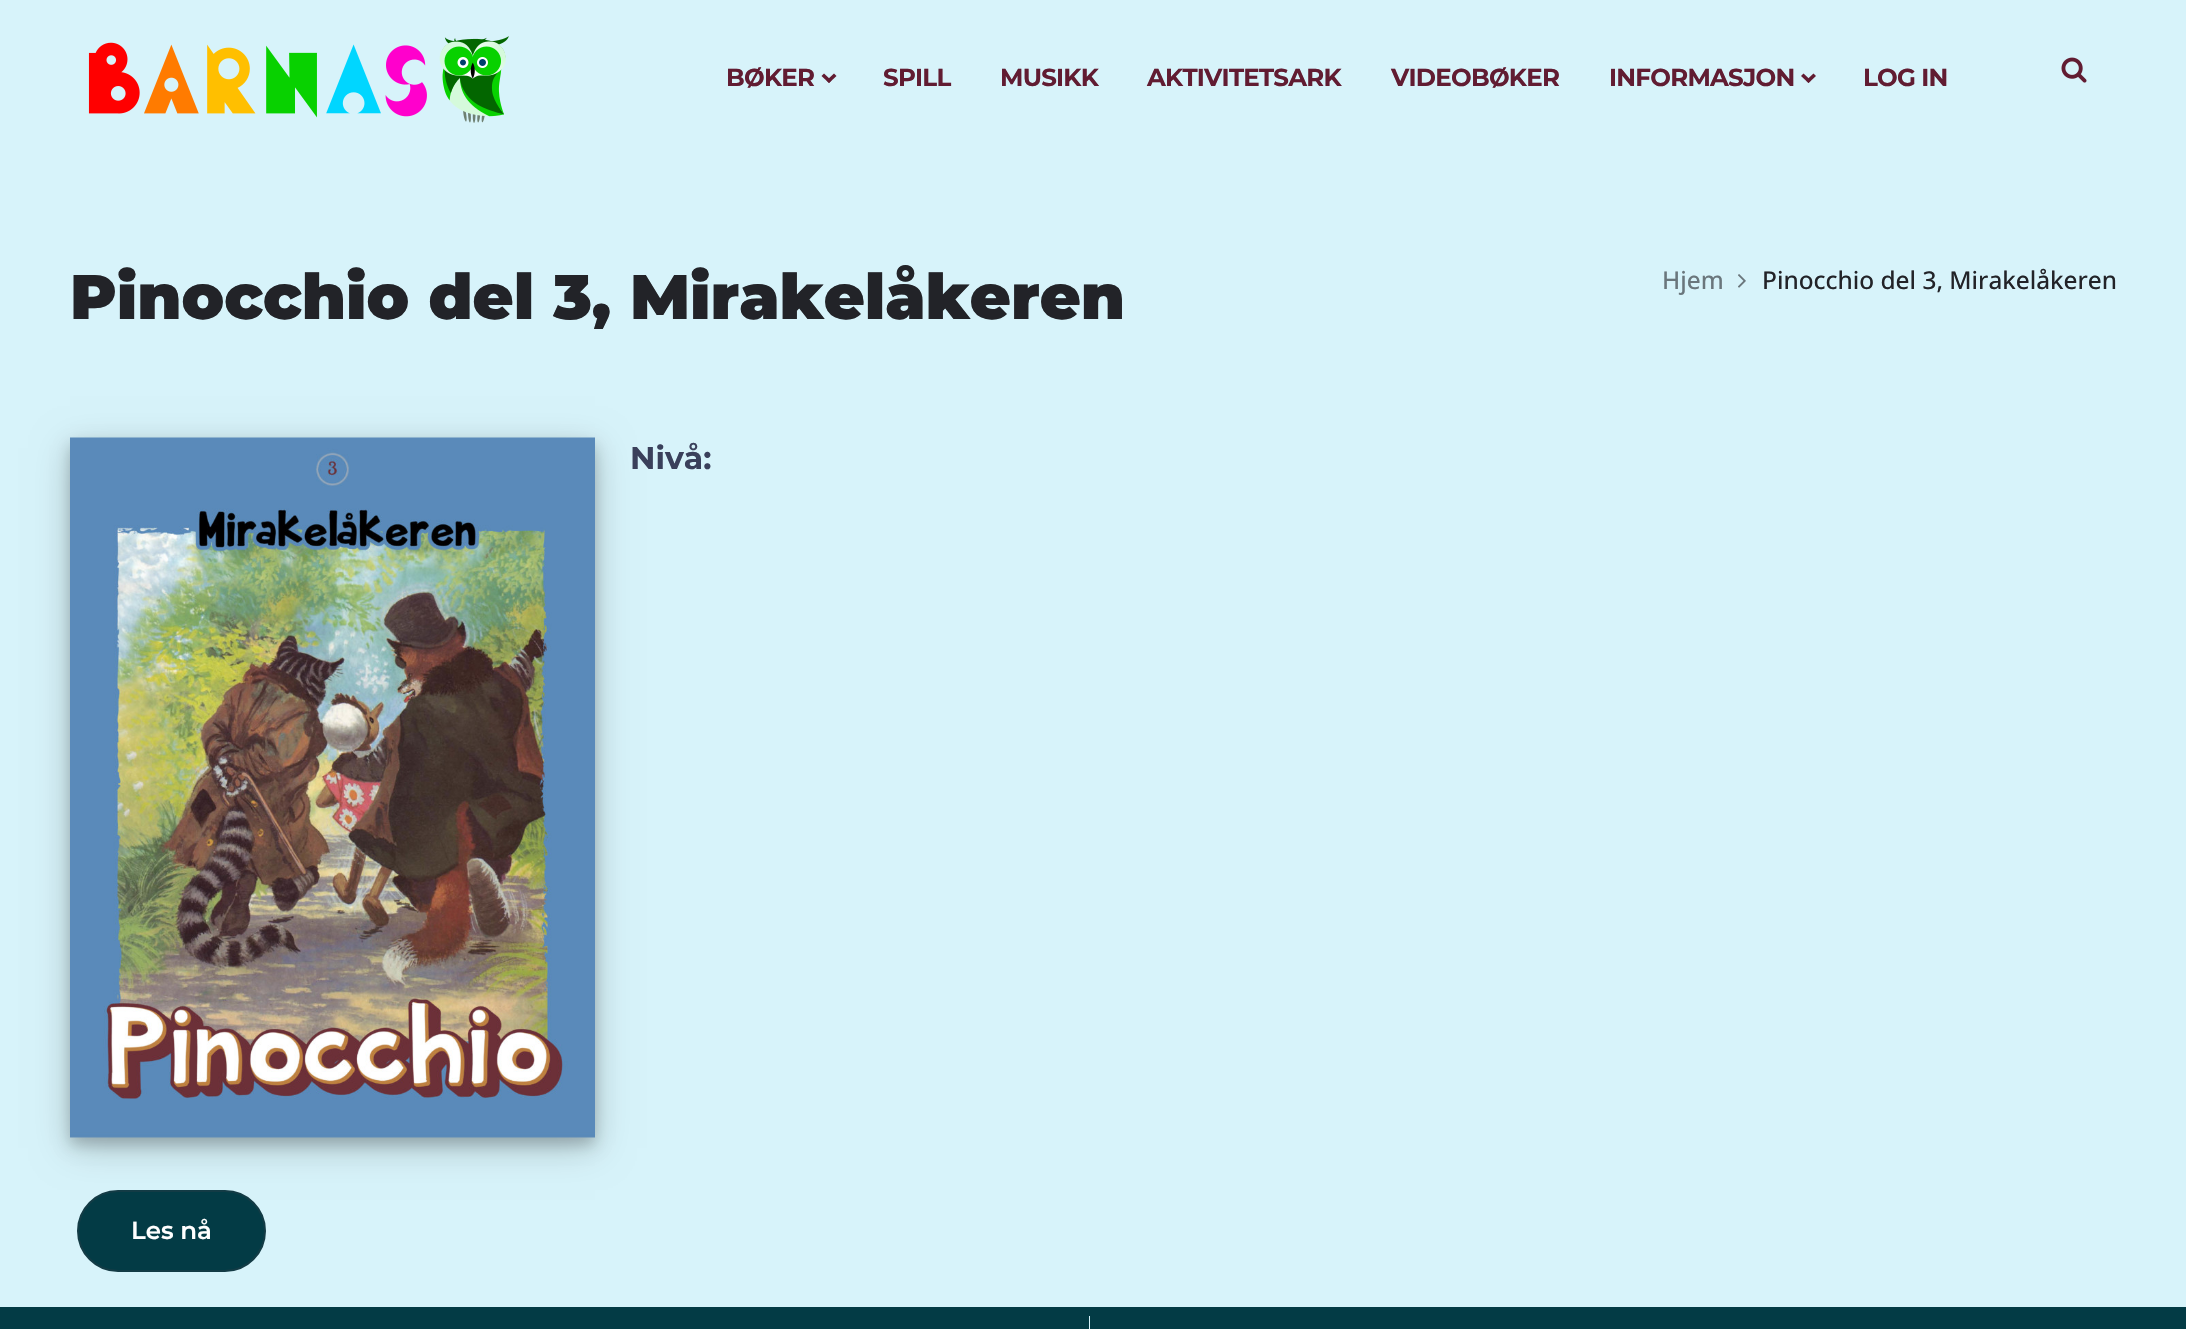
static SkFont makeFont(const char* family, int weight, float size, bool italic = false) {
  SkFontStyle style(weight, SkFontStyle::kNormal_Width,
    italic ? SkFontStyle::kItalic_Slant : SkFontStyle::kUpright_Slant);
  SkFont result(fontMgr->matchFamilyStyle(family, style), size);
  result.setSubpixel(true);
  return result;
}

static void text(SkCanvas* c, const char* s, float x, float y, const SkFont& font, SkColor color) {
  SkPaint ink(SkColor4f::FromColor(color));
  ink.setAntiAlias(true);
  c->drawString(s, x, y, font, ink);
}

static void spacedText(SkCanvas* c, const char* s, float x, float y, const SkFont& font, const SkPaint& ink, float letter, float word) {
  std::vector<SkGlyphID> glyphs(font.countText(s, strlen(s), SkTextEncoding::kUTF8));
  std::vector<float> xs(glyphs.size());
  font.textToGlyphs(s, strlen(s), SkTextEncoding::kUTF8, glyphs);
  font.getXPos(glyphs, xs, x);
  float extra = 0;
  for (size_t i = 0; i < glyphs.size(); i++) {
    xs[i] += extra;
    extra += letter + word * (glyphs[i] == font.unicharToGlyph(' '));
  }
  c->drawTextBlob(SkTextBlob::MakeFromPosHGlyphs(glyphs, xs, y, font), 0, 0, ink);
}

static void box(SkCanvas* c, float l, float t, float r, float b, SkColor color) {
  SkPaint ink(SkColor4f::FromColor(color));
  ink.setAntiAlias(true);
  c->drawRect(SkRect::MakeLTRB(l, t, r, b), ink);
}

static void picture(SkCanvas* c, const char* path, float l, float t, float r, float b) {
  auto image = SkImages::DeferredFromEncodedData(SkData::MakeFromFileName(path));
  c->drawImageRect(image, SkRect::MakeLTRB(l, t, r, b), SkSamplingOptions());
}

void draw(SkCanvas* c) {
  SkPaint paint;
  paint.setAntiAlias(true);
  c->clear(0xffd7f3fa);
  picture(c, "img_01.png", 88, 36, 509, 123);
  SkFont face1 = makeFont("Montserrat", 700, 24.5f);
  paint.setColor(0xff611c32);
  spacedText(c, "BØKER", 726, 86, face1, paint, -0.75f, 0);
  c->drawPath(SkPathBuilder().moveTo(829, 83).lineTo(821.5f, 76).lineTo(824, 73.5f).lineTo(831.5f, 80.5f).close().detach(), paint);
  c->drawPath(SkPathBuilder().moveTo(829, 83).lineTo(826.5f, 80.5f).lineTo(834, 73.5f).lineTo(836.5f, 76).close().detach(), paint);
  spacedText(c, "SPILL", 883, 86, face1, paint, -0.75f, 0);
  spacedText(c, "MUSIKK", 1000, 86, face1, paint, -0.75f, 0);
  spacedText(c, "AKTIVITETSARK", 1147, 86, face1, paint, -0.75f, 0);
  spacedText(c, "VIDEOBØKER", 1391, 86, face1, paint, -0.75f, 0);
  spacedText(c, "INFORMASJON", 1609, 86, face1, paint, -0.75f, 0);
  c->drawPath(SkPathBuilder().moveTo(1808.5f, 83).lineTo(1801, 76).lineTo(1803.5f, 73.5f).lineTo(1811, 80.5f).close().detach(), paint);
  c->drawPath(SkPathBuilder().moveTo(1808.5f, 83).lineTo(1806, 80.5f).lineTo(1813.5f, 73.5f).lineTo(1816, 76).close().detach(), paint);
  spacedText(c, "LOG IN", 1863, 86, face1, paint, -0.75f, 0);
  picture(c, "img_02.png", 2061, 57, 2087, 83);
  SkFont face2 = makeFont("Montserrat", 900, 63);
  text(c, "Pinocchio del 3, Mirakelåkeren", 70, 319, face2, 0xff222328);
  SkFont face3 = makeFont("Open Sans", 500, 24.5f);
  text(c, "Hjem", 1662, 289, face3, 0xff6a767c);
  picture(c, "img_03.png", 1738, 274, 1746, 288);
  text(c, "Pinocchio del 3, Mirakelåkeren", 1762, 289, face3, 0xff222328);
  paint.setColor(0x30000000);
  paint.setMaskFilter(SkMaskFilter::MakeBlur(kNormal_SkBlurStyle, 17.5f));
  c->drawRect(SkRect::MakeLTRB(70, 448, 595, 1148), paint);
  paint.setMaskFilter(nullptr);
  SkFont face4 = makeFont("Montserrat", 700, 31.5f);
  text(c, "Nivå:", 630, 469, face4, 0xff3a405b);
  paint.setColor(0x33000000);
  paint.setMaskFilter(SkMaskFilter::MakeBlur(kNormal_SkBlurStyle, 7));
  c->drawRect(SkRect::MakeLTRB(70, 445, 595, 1145), paint);
  paint.setMaskFilter(nullptr);
  picture(c, "img_04.png", 70, 437, 595, 1138);
  paint.setColor(0xff033b45);
  c->drawRoundRect(SkRect::MakeLTRB(78, 1191, 265, 1271), 40, 40, paint);
  paint.setStyle(SkPaint::kStroke_Style);
  paint.setStrokeWidth(2);
  paint.setColor(0xff133b45);
  c->drawRoundRect(SkRect::MakeLTRB(78, 1191, 265, 1271), 40, 40, paint);
  SkFont face5 = makeFont("Montserrat", 600, 24.5f);
  text(c, "Les nå", 131, 1239, face5, 0xffffffff);
  box(c, 0, 1307, 2186, 1329, 0xff033b45);
  box(c, 1089, 1316, 1090, 1329, 0xffd7f3fa);
}
